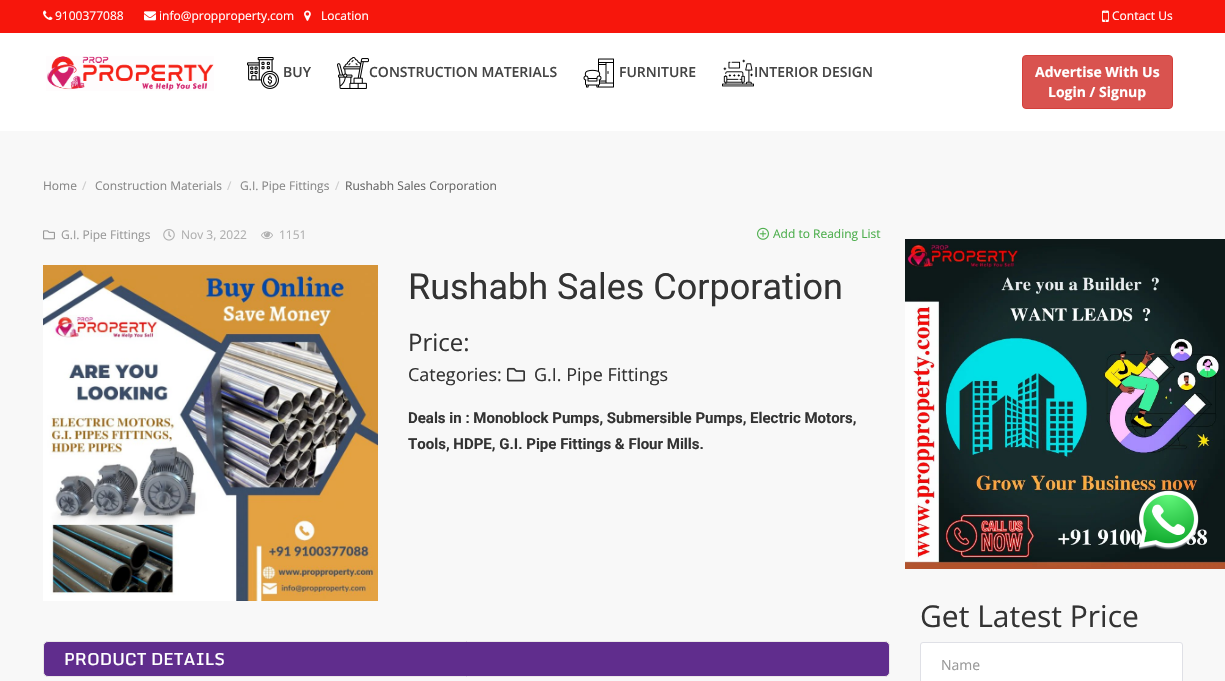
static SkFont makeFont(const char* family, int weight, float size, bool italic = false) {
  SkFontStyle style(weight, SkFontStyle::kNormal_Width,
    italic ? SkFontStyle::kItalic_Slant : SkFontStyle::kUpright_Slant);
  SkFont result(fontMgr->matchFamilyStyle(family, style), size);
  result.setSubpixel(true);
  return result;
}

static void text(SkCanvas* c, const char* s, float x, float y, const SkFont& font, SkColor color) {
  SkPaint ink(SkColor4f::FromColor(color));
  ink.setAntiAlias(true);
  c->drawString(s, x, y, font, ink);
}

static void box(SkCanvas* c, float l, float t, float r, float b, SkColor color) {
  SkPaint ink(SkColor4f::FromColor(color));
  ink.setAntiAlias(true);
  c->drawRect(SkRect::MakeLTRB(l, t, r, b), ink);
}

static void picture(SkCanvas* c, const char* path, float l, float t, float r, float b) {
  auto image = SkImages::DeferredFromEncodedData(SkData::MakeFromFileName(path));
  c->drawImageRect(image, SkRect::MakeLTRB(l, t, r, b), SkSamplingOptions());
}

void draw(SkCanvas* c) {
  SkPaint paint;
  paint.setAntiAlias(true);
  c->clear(0xffffffff);
  box(c, 0, 0, 1225, 33, 0xfff7160c);
  picture(c, "img_01.png", 43, 10, 53, 20);
  SkFont face1 = makeFont("Open Sans", 400, 12);
  text(c, "9100377088", 55, 20, face1, 0xffffffff);
  picture(c, "img_02.png", 144, 11, 156, 21);
  text(c, "info@propproperty.com", 159, 20, face1, 0xffffffff);
  picture(c, "img_03.png", 304, 10, 311, 21);
  text(c, "Location", 321, 20, face1, 0xffffffff);
  picture(c, "img_04.png", 1102, 10, 1109, 22);
  text(c, "Contact Us", 1112, 20, face1, 0xffffffff);
  picture(c, "img_05.png", 46, 56, 214, 91);
  picture(c, "img_06.png", 247, 57, 279, 89);
  SkFont face2 = makeFont("Open Sans", 600, 14);
  text(c, "BUY", 283, 77, face2, 0xff444444);
  picture(c, "img_07.png", 337, 57, 369, 89);
  text(c, "CONSTRUCTION MATERIALS", 369, 77, face2, 0xff444444);
  picture(c, "img_08.png", 583, 58, 614, 88);
  text(c, "FURNITURE", 619, 77, face2, 0xff444444);
  picture(c, "img_09.png", 722, 59, 754, 87);
  text(c, "INTERIOR DESIGN", 754, 77, face2, 0xff444444);
  paint.setColor(0xffd9534f);
  c->drawRoundRect(SkRect::MakeLTRB(1022.5f, 55.5f, 1172.5f, 108.5f), 3.5f, 3.5f, paint);
  paint.setStyle(SkPaint::kStroke_Style);
  paint.setStrokeWidth(1);
  paint.setColor(0xffd43f3a);
  c->drawRoundRect(SkRect::MakeLTRB(1022.5f, 55.5f, 1172.5f, 108.5f), 3.5f, 3.5f, paint);
  SkFont face3 = makeFont("Open Sans", 700, 14);
  text(c, "Advertise With Us", 1035, 77, face3, 0xffffffff);
  text(c, "Login / Signup", 1048, 97, face3, 0xffffffff);
  box(c, 0, 131, 1225, 681, 0xfff8f8f8);
  text(c, "Home", 43, 190, face1, 0xff888888);
  text(c, "/", 82, 190, face1, 0xffcccccc);
  text(c, "Construction Materials", 95, 190, face1, 0xff888888);
  text(c, "/", 227, 190, face1, 0xffcccccc);
  text(c, "G.I. Pipe Fittings", 240, 190, face1, 0xff888888);
  text(c, "/", 335, 190, face1, 0xffcccccc);
  text(c, "Rushabh Sales Corporation", 345, 190, face1, 0xff666666);
  picture(c, "img_10.png", 43, 230, 55, 240);
  text(c, "G.I. Pipe Fittings", 61, 239, face1, 0xff999999);
  picture(c, "img_11.png", 163, 229, 175, 241);
  text(c, "Nov 3, 2022", 181, 239, face1, 0xffb0b0b0);
  picture(c, "img_12.png", 261, 231, 273, 239);
  text(c, "1151", 279, 239, face1, 0xffb0b0b0);
  picture(c, "img_13.png", 757, 227, 769, 240);
  text(c, "Add to Reading List", 773, 238, face1, 0xff4cae4c);
  picture(c, "img_14.png", 43, 265, 378, 601);
  SkFont face4 = makeFont("Roboto", 400, 36);
  text(c, "Rushabh Sales Corporation", 408, 299, face4, 0xff333333);
  SkFont face5 = makeFont("Open Sans", 400, 24);
  text(c, "Price:", 408, 351, face5, 0xff333333);
  SkFont face6 = makeFont("Open Sans", 400, 18);
  text(c, "Categories:", 408, 381, face6, 0xff333333);
  picture(c, "img_15.png", 507, 367, 525, 382);
  text(c, "G.I. Pipe Fittings", 534, 381, face6, 0xff333333);
  SkFont face7 = makeFont("Roboto", 700, 15);
  text(c, "Deals in : Monoblock Pumps, Submersible Pumps, Electric Motors,", 408, 423, face7, 0xff333333);
  text(c, "Tools, HDPE, G.I. Pipe Fittings & Flour Mills.", 408, 449, face7, 0xff333333);
  paint.setStyle(SkPaint::kFill_Style);
  paint.setColor(0xff602d8d);
  c->drawRoundRect(SkRect::MakeLTRB(43.5f, 641.5f, 889.5f, 676.5f), 4.5f, 4.5f, paint);
  paint.setStyle(SkPaint::kStroke_Style);
  paint.setColor(0xffebe8e8);
  c->drawRoundRect(SkRect::MakeLTRB(43.5f, 641.5f, 889.5f, 676.5f), 4.5f, 4.5f, paint);
  SkFont face8 = makeFont("Monda", 500, 16.75f);
  text(c, "PRODUCT DETAILS", 64, 665, face8, 0xffffffff);
  picture(c, "img_16.png", 905, 239, 1225, 569);
  SkFont face9 = makeFont("Open Sans", 400, 30);
  text(c, "Get Latest Price", 920, 627, face9, 0xff333333);
  paint.setStyle(SkPaint::kFill_Style);
  paint.setColor(0xffffffff);
  c->drawRoundRect(SkRect::MakeLTRB(920.5f, 642.5f, 1182.5f, 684.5f), 2.5f, 2.5f, paint);
  paint.setStyle(SkPaint::kStroke_Style);
  paint.setColor(0xffdfe0e6);
  c->drawRoundRect(SkRect::MakeLTRB(920.5f, 642.5f, 1182.5f, 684.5f), 2.5f, 2.5f, paint);
  SkFont face10 = makeFont("Open Sans", 400, 14);
  text(c, "Name", 941, 670, face10, 0xff999999);
  picture(c, "img_17.png", 1138, 490, 1199, 550);
}
